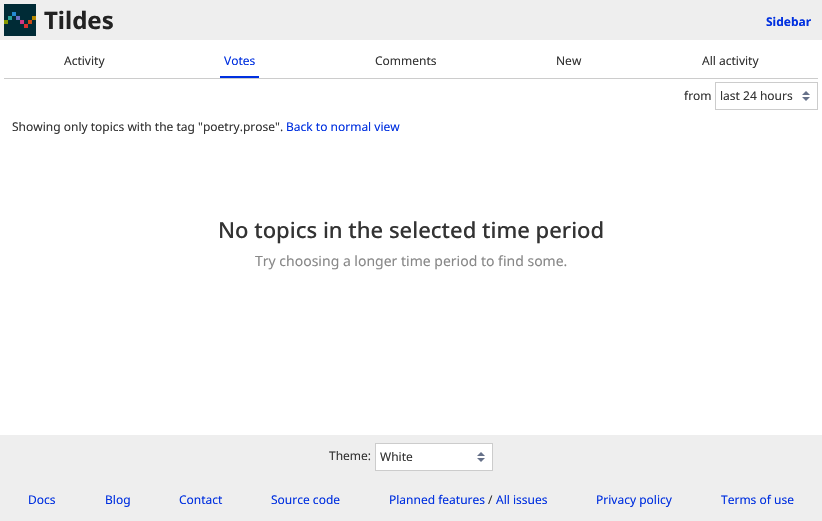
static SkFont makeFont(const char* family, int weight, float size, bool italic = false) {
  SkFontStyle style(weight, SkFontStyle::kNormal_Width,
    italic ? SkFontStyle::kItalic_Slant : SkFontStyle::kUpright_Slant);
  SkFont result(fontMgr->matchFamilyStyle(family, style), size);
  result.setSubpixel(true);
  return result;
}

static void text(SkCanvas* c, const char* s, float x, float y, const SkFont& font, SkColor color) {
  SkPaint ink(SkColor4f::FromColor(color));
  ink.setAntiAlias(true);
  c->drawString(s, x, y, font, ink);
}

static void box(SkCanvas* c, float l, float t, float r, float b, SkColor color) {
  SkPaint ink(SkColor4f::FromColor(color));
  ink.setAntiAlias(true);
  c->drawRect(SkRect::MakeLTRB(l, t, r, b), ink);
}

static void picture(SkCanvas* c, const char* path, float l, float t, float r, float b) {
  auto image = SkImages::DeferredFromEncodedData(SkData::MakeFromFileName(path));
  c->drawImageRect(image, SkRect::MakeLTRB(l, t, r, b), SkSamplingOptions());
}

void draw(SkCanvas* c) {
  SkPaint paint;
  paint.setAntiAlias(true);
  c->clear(0xffeeeeee);
  picture(c, "img_01.png", 4, 4, 36, 36);
  SkFont face1 = makeFont("Noto Sans", 700, 24);
  text(c, "Tildes", 44, 29, face1, 0xff222222);
  SkFont face2 = makeFont("Noto Sans", 700, 12);
  text(c, "Sidebar", 766, 26, face2, 0xff0030e0);
  box(c, 0, 40, 822, 435, 0xffffffff);
  box(c, 4, 78, 818, 79, 0xffcccccc);
  SkFont face3 = makeFont("Noto Sans", 400, 12);
  text(c, "Activity", 64, 65, face3, 0xff333333);
  box(c, 220, 76, 259, 78, 0xff0030e0);
  text(c, "Votes", 224, 65, face3, 0xff0030e0);
  text(c, "Comments", 375, 65, face3, 0xff333333);
  text(c, "New", 556, 65, face3, 0xff333333);
  text(c, "All activity", 702, 65, face3, 0xff333333);
  text(c, "from", 684, 100, face3, 0xff333333);
  picture(c, "img_02.png", 802, 91, 810, 101);
  paint.setStyle(SkPaint::kStroke_Style);
  paint.setStrokeWidth(1);
  paint.setColor(0xffcccccc);
  c->drawRect(SkRect::MakeLTRB(715.5f, 82.5f, 817.5f, 109.5f), paint);
  text(c, "last 24 hours", 720, 100, face3, 0xff333333);
  text(c, "Showing only topics with the tag \"poetry.prose\".", 12, 131, face3, 0xff333333);
  text(c, "Back to normal view", 286, 131, face3, 0xff0030e0);
  SkFont face4 = makeFont("Noto Sans", 500, 22);
  text(c, "No topics in the selected time period", 218, 238, face4, 0xff333333);
  SkFont face5 = makeFont("Noto Sans", 400, 14);
  text(c, "Try choosing a longer time period to find some.", 255, 266, face5, 0xff888888);
  text(c, "Theme:", 329, 460, face3, 0xff333333);
  box(c, 376, 444, 492, 470, 0xffffffff);
  picture(c, "img_02.png", 477, 452, 485, 462);
  c->drawRect(SkRect::MakeLTRB(375.5f, 443.5f, 492.5f, 470.5f), paint);
  text(c, "White", 380, 461, face3, 0xff333333);
  text(c, "Docs", 28, 504, face3, 0xff0030e0);
  text(c, "Blog", 105, 504, face3, 0xff0030e0);
  text(c, "Contact", 179, 504, face3, 0xff0030e0);
  text(c, "Source code", 271, 504, face3, 0xff0030e0);
  text(c, "Planned features", 389, 504, face3, 0xff0030e0);
  text(c, "/", 488, 504, face3, 0xff333333);
  text(c, "All issues", 496, 504, face3, 0xff0030e0);
  text(c, "Privacy policy", 596, 504, face3, 0xff0030e0);
  text(c, "Terms of use", 721, 504, face3, 0xff0030e0);
}
